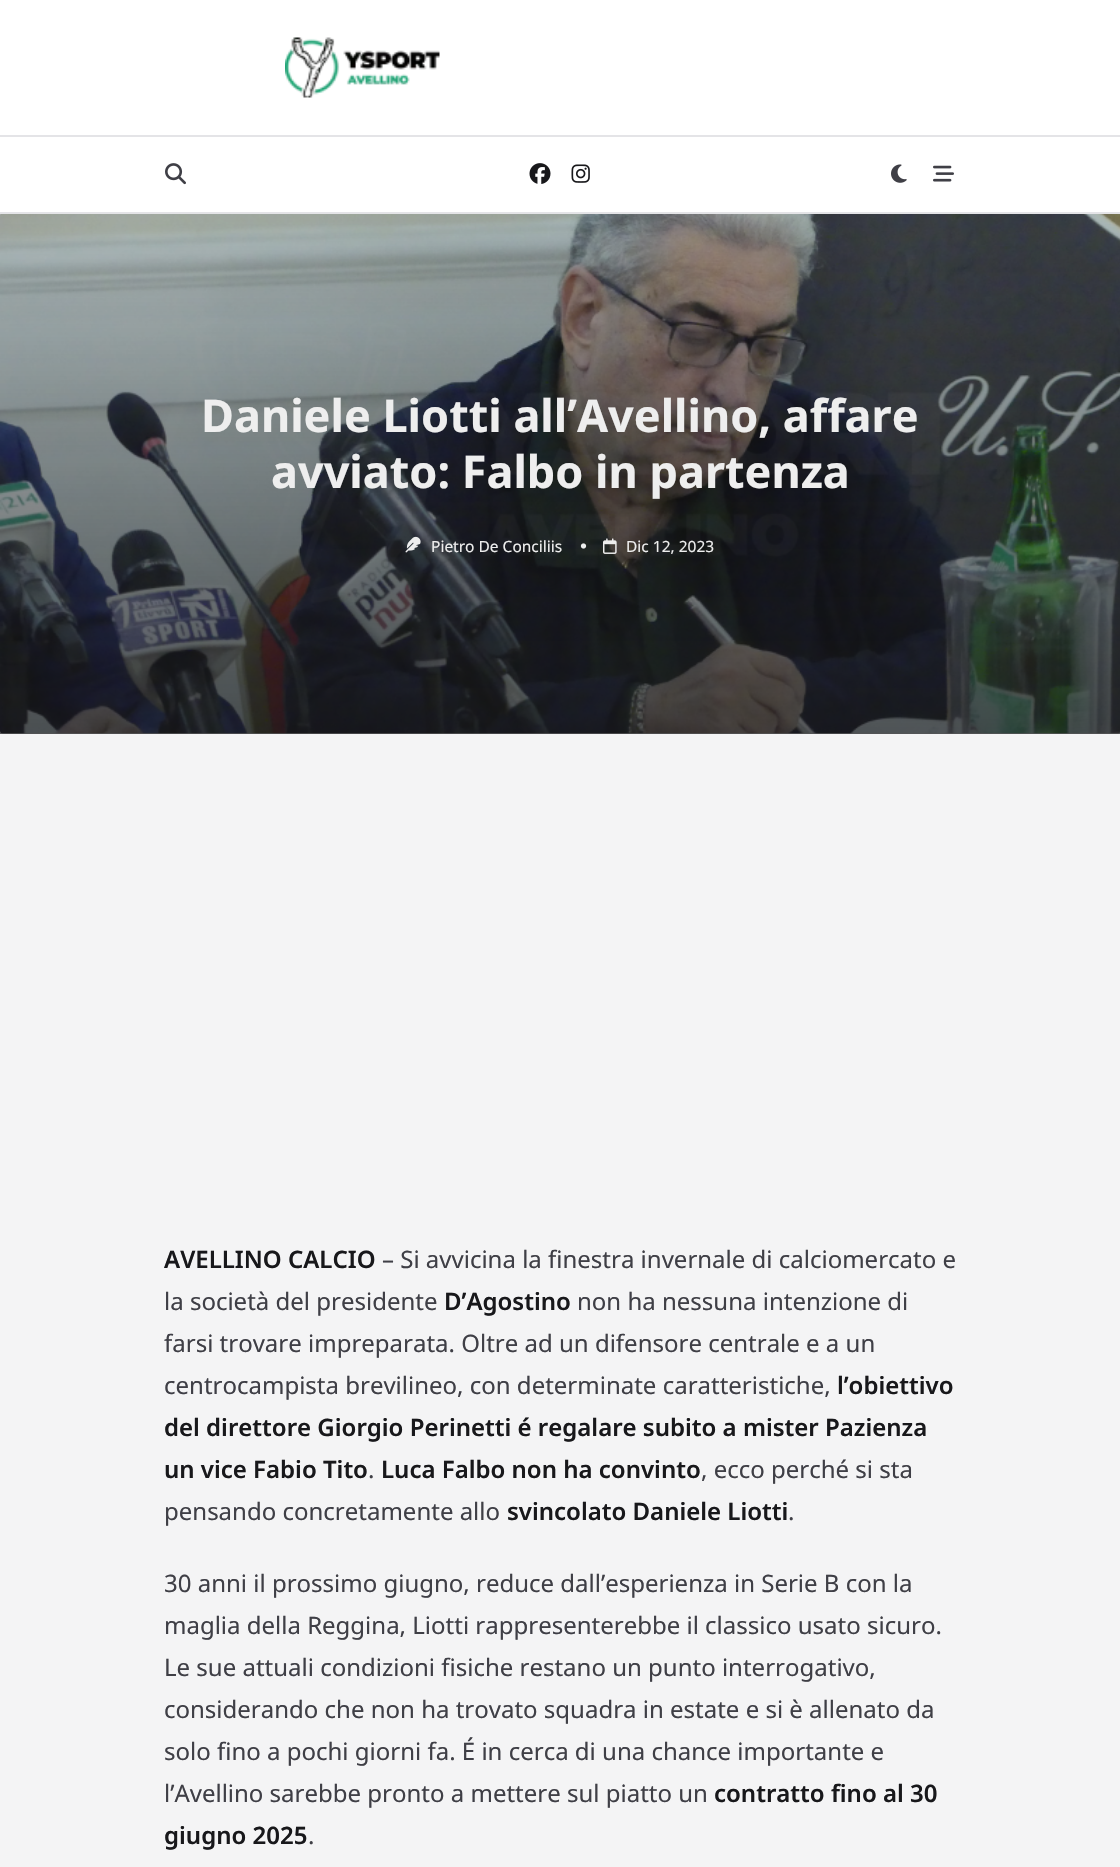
static SkFont makeFont(const char* family, int weight, float size, bool italic = false) {
  SkFontStyle style(weight, SkFontStyle::kNormal_Width,
    italic ? SkFontStyle::kItalic_Slant : SkFontStyle::kUpright_Slant);
  SkFont result(fontMgr->matchFamilyStyle(family, style), size);
  result.setSubpixel(true);
  return result;
}

static void text(SkCanvas* c, const char* s, float x, float y, const SkFont& font, SkColor color) {
  SkPaint ink(SkColor4f::FromColor(color));
  ink.setAntiAlias(true);
  c->drawString(s, x, y, font, ink);
}

static void box(SkCanvas* c, float l, float t, float r, float b, SkColor color) {
  SkPaint ink(SkColor4f::FromColor(color));
  ink.setAntiAlias(true);
  c->drawRect(SkRect::MakeLTRB(l, t, r, b), ink);
}

static void picture(SkCanvas* c, const char* path, float l, float t, float r, float b) {
  auto image = SkImages::DeferredFromEncodedData(SkData::MakeFromFileName(path));
  c->drawImageRect(image, SkRect::MakeLTRB(l, t, r, b), SkSamplingOptions());
}

void draw(SkCanvas* c) {
  SkPaint paint;
  paint.setAntiAlias(true);
  c->clear(0xfff4f4f5);
  box(c, 0, 0, 1120, 135, 0xffffffff);
  box(c, 0, 135, 1120, 137, 0xffe4e4e7);
  picture(c, "img_01.png", 285, 37, 440, 98);
  box(c, 0, 137, 1120, 212, 0xffffffff);
  box(c, 0, 212, 1120, 214, 0xffe4e4e7);
  picture(c, "img_02.png", 165, 163, 186, 185);
  picture(c, "img_03.png", 529, 163, 551, 184);
  picture(c, "img_04.png", 571, 164, 590, 183);
  picture(c, "img_05.png", 891, 164, 907, 183);
  picture(c, "img_06.png", 933, 165, 954, 182);
  picture(c, "img_07.png", 0, 214, 1120, 734);
  {
    const SkColor colors[] = {0x4218181b, 0xba18181b};
    const float stops[] = {0, 1};
    const SkPoint ends[] = {{560, 213}, {560, 734}};
    paint.setShader(SkGradientShader::MakeLinear(ends, colors, stops, 2, SkTileMode::kClamp));
    paint.setAlpha(255);
  }
  c->drawRect(SkRect::MakeLTRB(0, 214, 1120, 734), paint);
  SkFont face1 = makeFont("Noto Sans", 700, 45);
  text(c, "Daniele Liotti all’Avellino, affare", 201, 432, face1, 0xffeeeeee);
  text(c, "avviato: Falbo in partenza", 271, 488, face1, 0xffeeeeee);
  picture(c, "img_08.png", 405, 536, 421, 553);
  SkFont face2 = makeFont("Noto Sans", 400, 15.5f);
  text(c, "Pietro De Conciliis", 431, 552, face2, 0xffeeeeee);
  picture(c, "img_09.png", 580, 543, 587, 549);
  picture(c, "img_10.png", 603, 538, 617, 554);
  text(c, "Dic 12, 2023", 626, 552, face2, 0xffeeeeee);
  SkFont face3 = makeFont("Noto Sans", 600, 24);
  text(c, "AVELLINO CALCIO", 164, 1268, face3, 0xff18181b);
  SkFont face4 = makeFont("Noto Sans", 400, 24);
  text(c, "– Si avvicina la finestra invernale di calciomercato e", 382, 1268, face4, 0xff3f3f46);
  text(c, "la società del presidente", 164, 1310, face4, 0xff3f3f46);
  text(c, "D’Agostino", 444, 1310, face3, 0xff18181b);
  text(c, "non ha nessuna intenzione di", 577, 1310, face4, 0xff3f3f46);
  text(c, "farsi trovare impreparata. Oltre ad un difensore centrale e a un", 164, 1352, face4, 0xff3f3f46);
  text(c, "centrocampista brevilineo, con determinate caratteristiche,", 164, 1394, face4, 0xff3f3f46);
  text(c, "l’obiettivo", 837, 1394, face3, 0xff18181b);
  text(c, "del direttore Giorgio Perinetti é regalare subito a mister Pazienza", 164, 1436, face3, 0xff18181b);
  text(c, "un vice Fabio Tito", 164, 1478, face3, 0xff18181b);
  text(c, ".", 368, 1478, face4, 0xff3f3f46);
  text(c, "Luca Falbo non ha convinto", 381, 1478, face3, 0xff18181b);
  text(c, ", ecco perché si sta", 701, 1478, face4, 0xff3f3f46);
  text(c, "pensando concretamente allo", 164, 1520, face4, 0xff3f3f46);
  text(c, "svincolato Daniele Liotti", 507, 1520, face3, 0xff18181b);
  text(c, ".", 788, 1520, face4, 0xff3f3f46);
  text(c, "30 anni il prossimo giugno, reduce dall’esperienza in Serie B con la", 164, 1592, face4, 0xff3f3f46);
  text(c, "maglia della Reggina, Liotti rappresenterebbe il classico usato sicuro.", 164, 1634, face4, 0xff3f3f46);
  text(c, "Le sue attuali condizioni fisiche restano un punto interrogativo,", 164, 1676, face4, 0xff3f3f46);
  text(c, "considerando che non ha trovato squadra in estate e si è allenato da", 164, 1718, face4, 0xff3f3f46);
  text(c, "solo fino a pochi giorni fa. É in cerca di una chance importante e", 164, 1760, face4, 0xff3f3f46);
  text(c, "l’Avellino sarebbe pronto a mettere sul piatto un", 164, 1802, face4, 0xff3f3f46);
  text(c, "contratto fino al 30", 714, 1802, face3, 0xff18181b);
  text(c, "giugno 2025", 164, 1844, face3, 0xff18181b);
  text(c, ".", 308, 1844, face4, 0xff3f3f46);
}
